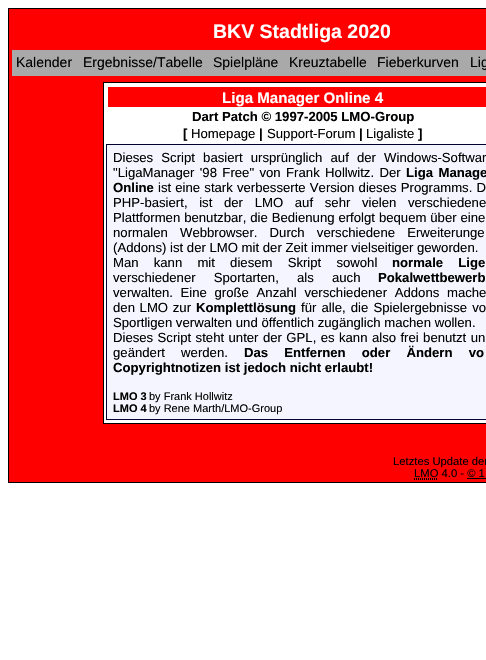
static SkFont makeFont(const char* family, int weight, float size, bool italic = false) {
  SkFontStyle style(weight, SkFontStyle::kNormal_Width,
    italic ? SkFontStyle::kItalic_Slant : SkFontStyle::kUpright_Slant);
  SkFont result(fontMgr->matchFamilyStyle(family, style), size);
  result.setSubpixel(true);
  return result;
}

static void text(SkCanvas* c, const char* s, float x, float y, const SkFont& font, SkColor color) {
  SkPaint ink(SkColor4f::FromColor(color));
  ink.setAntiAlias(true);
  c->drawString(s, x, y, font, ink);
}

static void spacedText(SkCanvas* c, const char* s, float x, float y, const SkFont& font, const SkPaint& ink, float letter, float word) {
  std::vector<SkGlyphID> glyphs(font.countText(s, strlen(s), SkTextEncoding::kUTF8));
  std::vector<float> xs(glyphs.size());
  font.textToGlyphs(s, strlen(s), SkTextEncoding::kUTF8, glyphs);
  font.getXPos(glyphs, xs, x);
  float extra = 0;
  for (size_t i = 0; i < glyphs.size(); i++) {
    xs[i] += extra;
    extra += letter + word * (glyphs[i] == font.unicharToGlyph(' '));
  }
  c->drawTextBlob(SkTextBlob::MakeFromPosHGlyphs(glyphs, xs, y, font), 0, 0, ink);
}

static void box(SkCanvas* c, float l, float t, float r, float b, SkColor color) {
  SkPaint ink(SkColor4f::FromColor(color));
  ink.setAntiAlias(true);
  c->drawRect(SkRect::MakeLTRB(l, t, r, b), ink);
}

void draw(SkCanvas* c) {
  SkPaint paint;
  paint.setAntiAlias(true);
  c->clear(0xffffffff);
  paint.setColor(0xffff0000);
  c->drawRect(SkRect::MakeLTRB(8.5f, 8.5f, 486.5f, 482.5f), paint);
  paint.setStyle(SkPaint::kStroke_Style);
  paint.setStrokeWidth(1);
  paint.setColor(0xff000000);
  c->drawRect(SkRect::MakeLTRB(8.5f, 8.5f, 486.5f, 482.5f), paint);
  SkFont face1 = makeFont("Liberation Sans", 700, 19.5f);
  text(c, "BKV Stadtliga 2020", 213, 38, face1, 0xffffffff);
  box(c, 12, 50, 486, 76, 0xffa9a9a9);
  SkFont face2 = makeFont("Liberation Sans", 400, 14);
  text(c, "Kalender", 16, 67, face2, 0xff000000);
  text(c, "Ergebnisse/Tabelle", 83, 67, face2, 0xff000000);
  text(c, "Spielpläne", 213, 67, face2, 0xff000000);
  text(c, "Kreuztabelle", 289, 67, face2, 0xff000000);
  text(c, "Fieberkurven", 377, 67, face2, 0xff000000);
  text(c, "Lig", 470, 67, face2, 0xff000000);
  paint.setStyle(SkPaint::kFill_Style);
  paint.setColor(0xffffffff);
  c->drawRect(SkRect::MakeLTRB(103.5f, 82.5f, 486.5f, 423.5f), paint);
  paint.setStyle(SkPaint::kStroke_Style);
  paint.setColor(0xff000000);
  c->drawRect(SkRect::MakeLTRB(103.5f, 82.5f, 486.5f, 423.5f), paint);
  box(c, 108, 87, 486, 107, 0xffff0000);
  SkFont face3 = makeFont("Liberation Sans", 700, 15.1f);
  text(c, "Liga Manager Online 4", 222, 103, face3, 0xffffffff);
  SkFont face4 = makeFont("Liberation Sans", 700, 13.15f);
  text(c, "Dart Patch © 1997-2005 LMO-Group", 192, 121, face4, 0xff000000);
  text(c, "[", 183, 138, face4, 0xff000000);
  SkFont face5 = makeFont("Liberation Sans", 400, 13.15f);
  text(c, "Homepage", 191, 138, face5, 0xff000000);
  text(c, "|", 259, 138, face4, 0xff000000);
  text(c, "Support-Forum", 267, 138, face5, 0xff000000);
  text(c, "|", 359, 138, face4, 0xff000000);
  text(c, "Ligaliste", 366, 138, face5, 0xff000000);
  text(c, "]", 418, 138, face4, 0xff000000);
  paint.setStyle(SkPaint::kFill_Style);
  paint.setColor(0xfff5f5ff);
  c->drawRect(SkRect::MakeLTRB(106.5f, 144.5f, 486.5f, 419.5f), paint);
  paint.setStyle(SkPaint::kStroke_Style);
  paint.setColor(0xff000033);
  c->drawRect(SkRect::MakeLTRB(106.5f, 144.5f, 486.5f, 419.5f), paint);
  paint.setStyle(SkPaint::kFill_Style);
  paint.setColor(0xff000000);
  spacedText(c, "Dieses Script basiert ursprünglich auf der Windows-Softwar", 113, 162, face5, paint, 0, 4.5f);
  spacedText(c, "\"LigaManager '98 Free\" von Frank Hollwitz. Der", 113, 177, face5, paint, 0, 1.75f);
  spacedText(c, "Liga Manage", 406, 177, face4, paint, 0, 1.75f);
  text(c, "Online", 113, 192, face4, 0xff000000);
  spacedText(c, "ist eine stark verbesserte Version dieses Programms. D", 158, 192, face5, paint, 0, 0.5f);
  spacedText(c, "PHP-basiert, ist der LMO auf sehr vielen verschiedene", 113, 207, face5, paint, 0, 8);
  spacedText(c, "Plattformen benutzbar, die Bedienung erfolgt bequem über eine", 113, 222, face5, paint, 0, 0.25f);
  spacedText(c, "normalen Webbrowser. Durch verschiedene Erweiterunge", 113, 237, face5, paint, 0, 8.5f);
  text(c, "(Addons) ist der LMO mit der Zeit immer vielseitiger geworden.", 113, 252, face5, 0xff000000);
  spacedText(c, "Man kann mit diesem Skript sowohl", 113, 267, face5, paint, 0, 11.5f);
  spacedText(c, "normale Lige", 392, 267, face4, paint, 0, 11.5f);
  spacedText(c, "verschiedener Sportarten, als auch", 113, 282, face5, paint, 0, 14.5f);
  text(c, "Pokalwettbewerb", 378, 282, face4, 0xff000000);
  spacedText(c, "verwalten. Eine große Anzahl verschiedener Addons mache", 113, 297, face5, paint, 0, 4);
  spacedText(c, "den LMO zur", 113, 312, face5, paint, 0, 1);
  text(c, "Komplettlösung", 196, 312, face4, 0xff000000);
  spacedText(c, "für alle, die Spielergebnisse vo", 301, 312, face5, paint, 0, 1.5f);
  text(c, "Sportligen verwalten und öffentlich zugänglich machen wollen.", 113, 327, face5, 0xff000000);
  spacedText(c, "Dieses Script steht unter der GPL, es kann also frei benutzt un", 113, 342, face5, paint, 0, 0.75f);
  spacedText(c, "geändert werden.", 113, 357, face5, paint, 0, 12.5f);
  spacedText(c, "Das Entfernen oder Ändern vo", 244, 357, face4, paint, 0, 12.5f);
  text(c, "Copyrightnotizen ist jedoch nicht erlaubt!", 113, 372, face4, 0xff000000);
  SkFont face6 = makeFont("Liberation Sans", 700, 11);
  text(c, "LMO 3", 113, 400, face6, 0xff000000);
  SkFont face7 = makeFont("Liberation Sans", 400, 11);
  text(c, "by Frank Hollwitz", 149, 400, face7, 0xff000000);
  text(c, "LMO 4", 113, 412, face6, 0xff000000);
  text(c, "by Rene Marth/LMO-Group", 149, 412, face7, 0xff000000);
  SkFont face8 = makeFont("Liberation Sans", 400, 11.25f);
  text(c, "Letztes Update der", 393, 465, face8, 0xff000000);
  text(c, "LMO 4.0 - © 1", 414, 477, face8, 0xff000000);
  paint.setStyle(SkPaint::kStroke_Style);
  paint.setPathEffect(SkDashPathEffect::Make({{1, 1}}, 0));
  c->drawPath(SkPathBuilder().moveTo(414, 479.5f).lineTo(438, 479.5f).moveTo(414, 478.5f).lineTo(438, 478.5f).detach(), paint);
  paint.setPathEffect(nullptr);
  box(c, 467, 478, 486, 479, 0xff000000);
}
